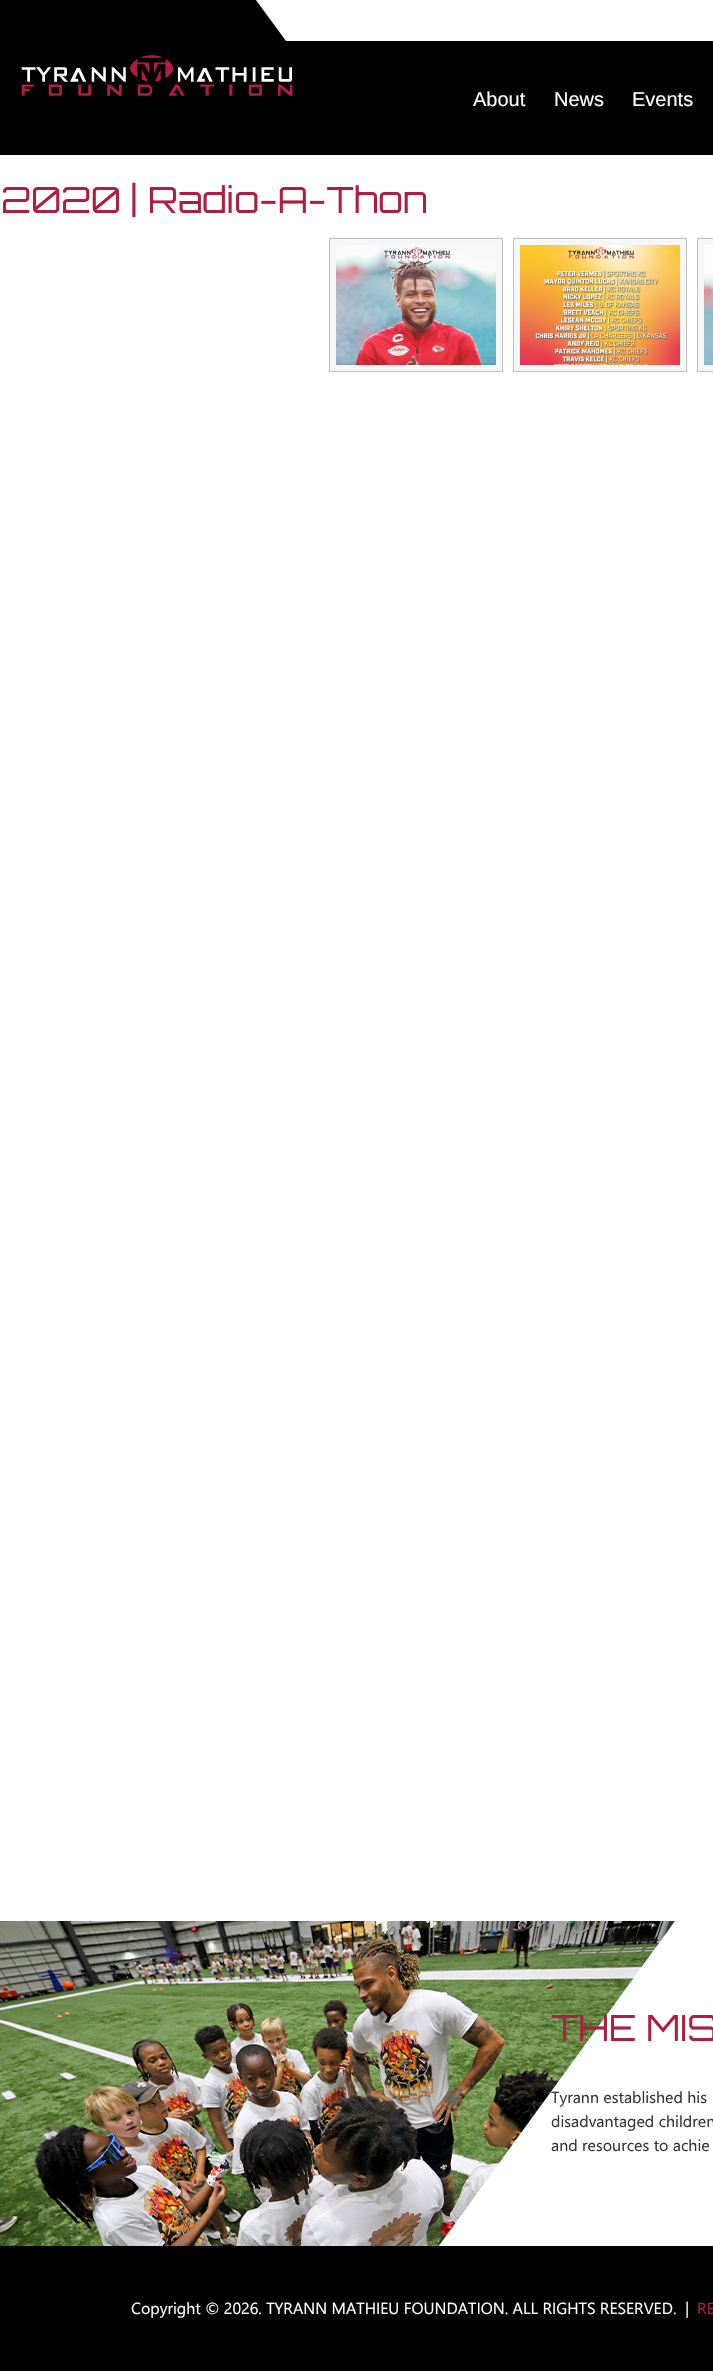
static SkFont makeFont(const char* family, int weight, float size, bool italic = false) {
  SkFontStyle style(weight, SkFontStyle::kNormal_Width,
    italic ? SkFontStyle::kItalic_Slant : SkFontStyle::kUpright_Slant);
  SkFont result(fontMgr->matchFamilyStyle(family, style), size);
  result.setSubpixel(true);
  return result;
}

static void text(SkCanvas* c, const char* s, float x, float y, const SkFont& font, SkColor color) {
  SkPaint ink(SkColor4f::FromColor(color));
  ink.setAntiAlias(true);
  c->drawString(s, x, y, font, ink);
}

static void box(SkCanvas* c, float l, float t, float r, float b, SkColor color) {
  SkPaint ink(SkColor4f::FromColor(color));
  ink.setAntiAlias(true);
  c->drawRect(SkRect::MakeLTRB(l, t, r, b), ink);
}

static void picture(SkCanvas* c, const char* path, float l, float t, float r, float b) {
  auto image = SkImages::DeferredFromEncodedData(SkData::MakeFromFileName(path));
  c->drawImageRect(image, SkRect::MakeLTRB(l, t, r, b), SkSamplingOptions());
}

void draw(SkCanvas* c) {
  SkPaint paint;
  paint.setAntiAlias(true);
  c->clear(0xffffffff);
  box(c, 0, 0, 713, 155, 0xff000000);
  picture(c, "img_01.png", 428, 0, 713, 41);
  picture(c, "img_02.png", 256, 0, 428, 41);
  picture(c, "img_03.png", 21, 55, 293, 96);
  SkFont face1 = makeFont("Liberation Sans", 400, 20);
  text(c, "About", 473, 106, face1, 0xffffffff);
  text(c, "News", 554, 106, face1, 0xffffffff);
  text(c, "Events", 632, 106, face1, 0xffffffff);
  SkFont face2 = makeFont("Orbitron", 400, 36);
  text(c, "2020 | Radio-A-Thon", 1, 213, face2, 0xffad1e40);
  paint.setColor(0xfff5f6f6);
  c->drawRect(SkRect::MakeLTRB(329.5f, 238.5f, 502.5f, 371.5f), paint);
  paint.setStyle(SkPaint::kStroke_Style);
  paint.setStrokeWidth(1);
  paint.setColor(0xffc1c1c1);
  c->drawRect(SkRect::MakeLTRB(329.5f, 238.5f, 502.5f, 371.5f), paint);
  picture(c, "img_04.png", 336, 245, 496, 365);
  paint.setStyle(SkPaint::kFill_Style);
  paint.setColor(0xfff5f6f6);
  c->drawRect(SkRect::MakeLTRB(513.5f, 238.5f, 686.5f, 371.5f), paint);
  paint.setStyle(SkPaint::kStroke_Style);
  paint.setColor(0xffc1c1c1);
  c->drawRect(SkRect::MakeLTRB(513.5f, 238.5f, 686.5f, 371.5f), paint);
  picture(c, "img_05.png", 520, 245, 680, 365);
  paint.setStyle(SkPaint::kFill_Style);
  paint.setColor(0xfff5f6f6);
  c->drawRect(SkRect::MakeLTRB(697.5f, 238.5f, 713.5f, 371.5f), paint);
  paint.setStyle(SkPaint::kStroke_Style);
  paint.setColor(0xffc1c1c1);
  c->drawRect(SkRect::MakeLTRB(697.5f, 238.5f, 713.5f, 371.5f), paint);
  picture(c, "img_06.png", 704, 245, 713, 365);
  picture(c, "img_07.png", 0, 1921, 675, 2246);
  text(c, "THE MIS", 551, 2041, face2, 0xffad1e40);
  SkFont face3 = makeFont("Segoe UI", 400, 16);
  text(c, "Tyrann established his", 551, 2103, face3, 0xff333333);
  text(c, "disadvantaged children", 551, 2127, face3, 0xff333333);
  text(c, "and resources to achie", 551, 2151, face3, 0xff333333);
  box(c, 0, 2246, 713, 2371, 0xff000000);
  text(c, "Copyright © 2026. TYRANN MATHIEU FOUNDATION. ALL RIGHTS RESERVED.  |", 131, 2314, face3, 0xffffffff);
  text(c, "RE", 697, 2314, face3, 0xffad1e40);
}
